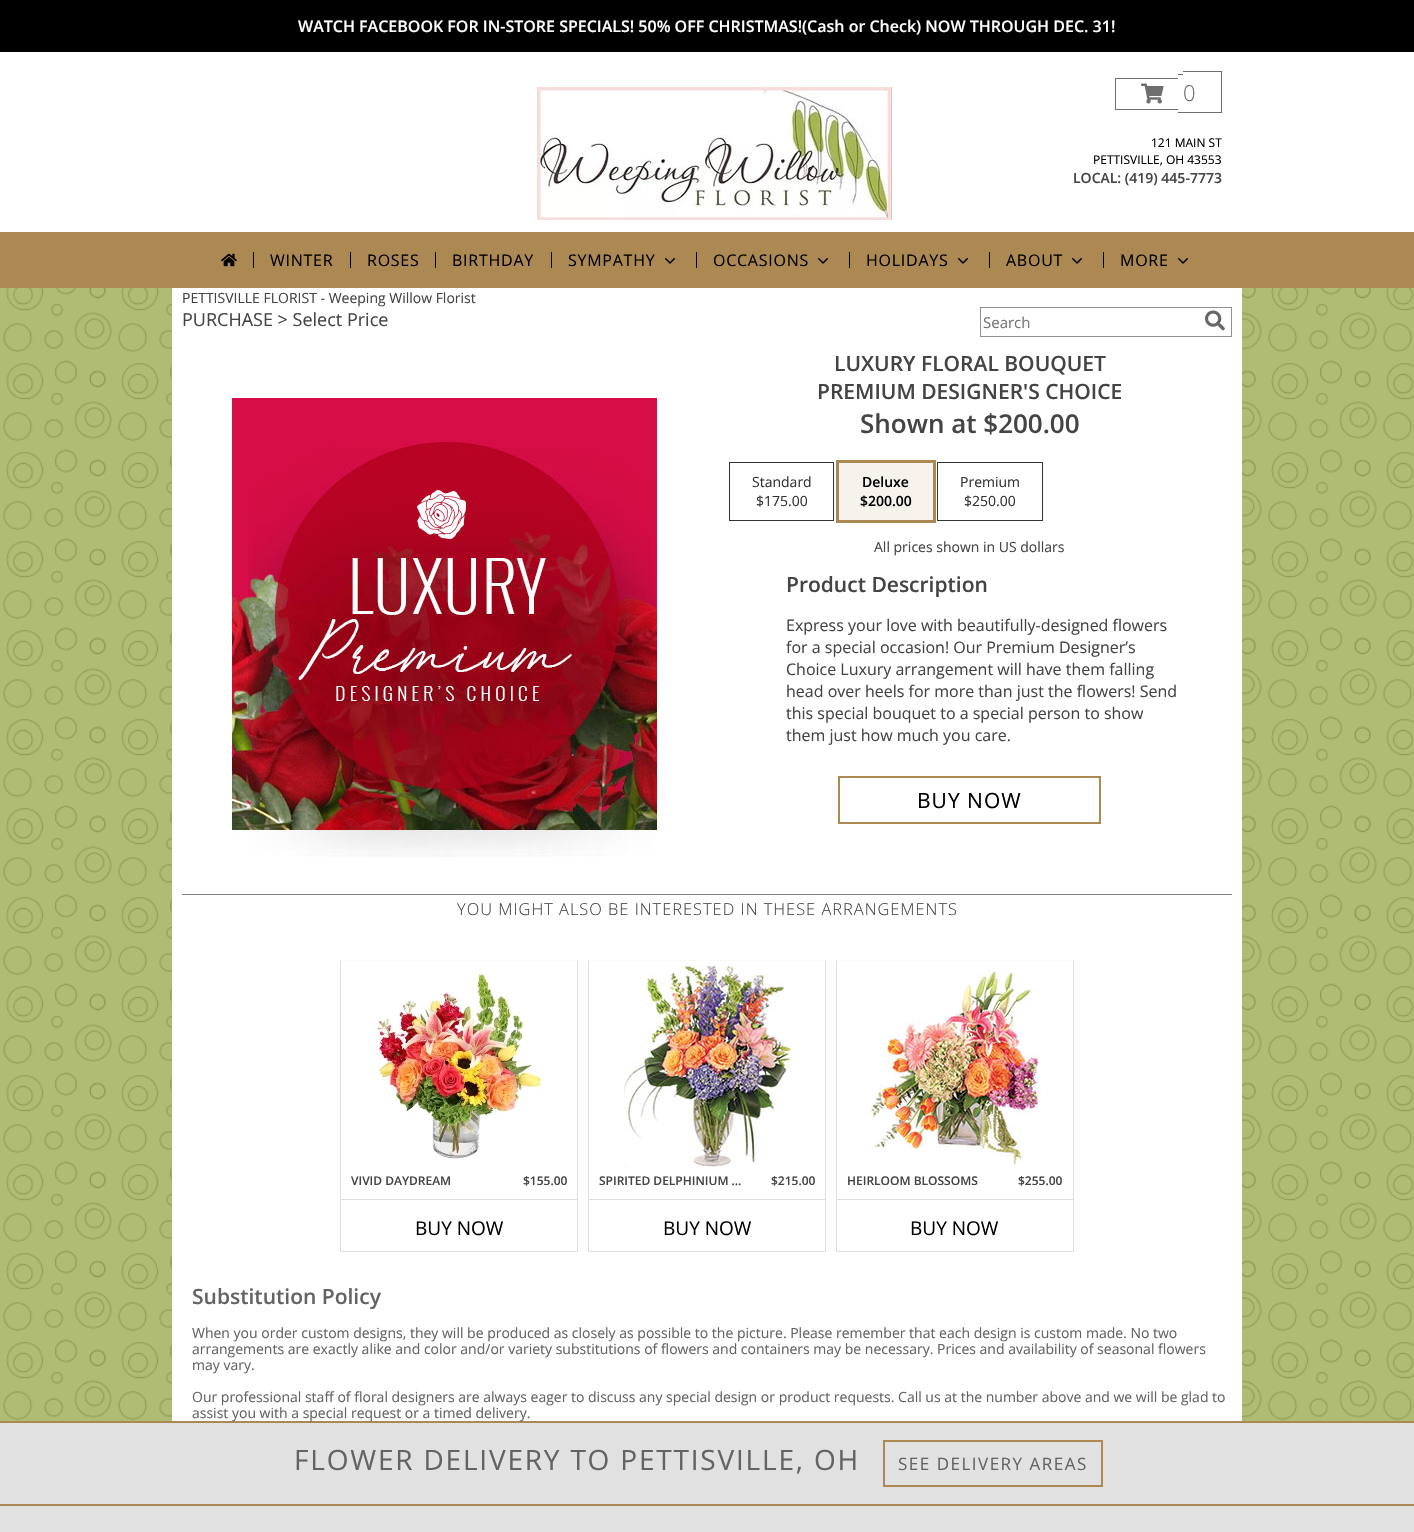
static SkFont makeFont(const char* family, int weight, float size, bool italic = false) {
  SkFontStyle style(weight, SkFontStyle::kNormal_Width,
    italic ? SkFontStyle::kItalic_Slant : SkFontStyle::kUpright_Slant);
  SkFont result(fontMgr->matchFamilyStyle(family, style), size);
  result.setSubpixel(true);
  return result;
}

static void text(SkCanvas* c, const char* s, float x, float y, const SkFont& font, SkColor color) {
  SkPaint ink(SkColor4f::FromColor(color));
  ink.setAntiAlias(true);
  c->drawString(s, x, y, font, ink);
}

static void spacedText(SkCanvas* c, const char* s, float x, float y, const SkFont& font, const SkPaint& ink, float letter, float word) {
  std::vector<SkGlyphID> glyphs(font.countText(s, strlen(s), SkTextEncoding::kUTF8));
  std::vector<float> xs(glyphs.size());
  font.textToGlyphs(s, strlen(s), SkTextEncoding::kUTF8, glyphs);
  font.getXPos(glyphs, xs, x);
  float extra = 0;
  for (size_t i = 0; i < glyphs.size(); i++) {
    xs[i] += extra;
    extra += letter + word * (glyphs[i] == font.unicharToGlyph(' '));
  }
  c->drawTextBlob(SkTextBlob::MakeFromPosHGlyphs(glyphs, xs, y, font), 0, 0, ink);
}

static void box(SkCanvas* c, float l, float t, float r, float b, SkColor color) {
  SkPaint ink(SkColor4f::FromColor(color));
  ink.setAntiAlias(true);
  c->drawRect(SkRect::MakeLTRB(l, t, r, b), ink);
}

static void picture(SkCanvas* c, const char* path, float l, float t, float r, float b) {
  auto image = SkImages::DeferredFromEncodedData(SkData::MakeFromFileName(path));
  c->drawImageRect(image, SkRect::MakeLTRB(l, t, r, b), SkSamplingOptions());
}

void draw(SkCanvas* c) {
  SkPaint paint;
  paint.setAntiAlias(true);
  c->clear(0xff9eac54);
  picture(c, "img_01.png", 0, 288, 1414, 1421);
  box(c, 172, 288, 1242, 1421, 0xffffffff);
  box(c, 0, 0, 1414, 52, 0xff000000);
  SkFont face1 = makeFont("Open Sans", 600, 16);
  text(c, "WATCH FACEBOOK FOR IN-STORE SPECIALS! 50% OFF CHRISTMAS!(Cash or Check) NOW THROUGH DEC. 31!", 298, 32, face1, 0xffffffff);
  box(c, 0, 52, 1414, 232, 0xffffffff);
  picture(c, "img_02.png", 537, 87, 892, 220);
  box(c, 1115, 78, 1178, 79, 0xff6e6e6e);
  box(c, 1115, 109, 1178, 110, 0xff6e6e6e);
  box(c, 1115, 78, 1116, 110, 0xff6e6e6e);
  box(c, 1178, 74, 1183, 75, 0xff6e6e6e);
  box(c, 1178, 112, 1183, 113, 0xff6e6e6e);
  box(c, 1183, 71, 1222, 72, 0xff6e6e6e);
  box(c, 1221, 71, 1222, 113, 0xff6e6e6e);
  box(c, 1183, 112, 1222, 113, 0xff6e6e6e);
  picture(c, "img_03.png", 1141, 83, 1164, 104);
  SkFont face2 = makeFont("Open Sans", 300, 22);
  text(c, "0", 1183, 101, face2, 0xff6e6e6e);
  SkFont face3 = makeFont("Open Sans", 400, 12);
  text(c, "121 MAIN ST", 1151, 147, face3, 0xff000000);
  text(c, "PETTISVILLE, OH 43553", 1093, 164, face3, 0xff000000);
  SkFont face4 = makeFont("Open Sans", 600, 14);
  text(c, "LOCAL: (419) 445-7773", 1073, 183, face4, 0xff444444);
  box(c, 0, 232, 1414, 288, 0xffac8953);
  picture(c, "img_04.png", 221, 253, 237, 267);
  box(c, 253, 252, 254, 268, 0xff000000);
  SkFont face5 = makeFont("Open Sans", 400, 16);
  paint.setColor(0xff000000);
  spacedText(c, "WINTER", 270, 266, face5, paint, 0.75f, 0);
  box(c, 350, 252, 351, 268, 0xff000000);
  spacedText(c, "ROSES", 367, 266, face5, paint, 0.75f, 0);
  box(c, 435, 252, 436, 268, 0xff000000);
  spacedText(c, "BIRTHDAY", 452, 266, face5, paint, 0.75f, 0);
  box(c, 551, 252, 552, 268, 0xff000000);
  spacedText(c, "SYMPATHY", 568, 266, face5, paint, 0.75f, 0);
  picture(c, "img_05.png", 665, 258, 675, 264);
  box(c, 696, 252, 697, 268, 0xff000000);
  spacedText(c, "OCCASIONS", 713, 266, face5, paint, 0.75f, 0);
  picture(c, "img_05.png", 818, 258, 828, 264);
  box(c, 849, 252, 850, 268, 0xff000000);
  spacedText(c, "HOLIDAYS", 866, 266, face5, paint, 0.75f, 0);
  picture(c, "img_05.png", 958, 258, 968, 264);
  box(c, 989, 252, 990, 268, 0xff000000);
  spacedText(c, "ABOUT", 1006, 266, face5, paint, 0.75f, 0);
  picture(c, "img_05.png", 1072, 258, 1082, 264);
  box(c, 1103, 252, 1104, 268, 0xff000000);
  spacedText(c, "MORE", 1120, 266, face5, paint, 0.75f, 0);
  picture(c, "img_05.png", 1178, 258, 1188, 264);
  SkFont face6 = makeFont("Open Sans", 400, 14);
  text(c, "PETTISVILLE FLORIST - Weeping Willow Florist", 182, 303, face6, 0xff444444);
  SkFont face7 = makeFont("Open Sans", 400, 18);
  text(c, "PURCHASE > Select Price", 182, 326, face7, 0xff444444);
  paint.setStyle(SkPaint::kStroke_Style);
  paint.setStrokeWidth(1);
  paint.setColor(0xff919191);
  c->drawRect(SkRect::MakeLTRB(980.5f, 307.5f, 1231.5f, 336.5f), paint);
  SkFont face8 = makeFont("Open Sans", 400, 15);
  text(c, "Search", 983, 328, face8, 0xff757575);
  picture(c, "img_06.png", 1205, 310, 1225, 331);
  picture(c, "img_07.png", 232, 398, 657, 857);
  SkFont face9 = makeFont("Open Sans", 600, 21);
  text(c, "LUXURY FLORAL BOUQUET", 834, 371, face9, 0xff444444);
  text(c, "PREMIUM DESIGNER'S CHOICE", 817, 399, face9, 0xff444444);
  SkFont face10 = makeFont("Open Sans", 600, 26);
  text(c, "Shown at $200.00", 860, 433, face10, 0xff444444);
  paint.setColor(0xff333333);
  c->drawRect(SkRect::MakeLTRB(729.5f, 462.5f, 833.5f, 520.5f), paint);
  text(c, "Standard", 752, 487, face6, 0xff333333);
  text(c, "$175.00", 756, 506, face6, 0xff333333);
  paint.setStrokeWidth(3);
  paint.setColor(0xffac8953);
  c->drawRect(SkRect::MakeLTRB(837.5f, 461.5f, 934.5f, 521.5f), paint);
  box(c, 839, 463, 933, 520, 0xfff6f3ed);
  text(c, "Deluxe", 862, 487, face4, 0xff000000);
  text(c, "$200.00", 860, 506, face4, 0xff000000);
  paint.setStrokeWidth(1);
  paint.setColor(0xff333333);
  c->drawRect(SkRect::MakeLTRB(937.5f, 462.5f, 1042.5f, 520.5f), paint);
  text(c, "Premium", 960, 487, face6, 0xff333333);
  text(c, "$250.00", 964, 506, face6, 0xff333333);
  text(c, "All prices shown in US dollars", 874, 552, face6, 0xff444444);
  text(c, "Product Description", 786, 592, face9, 0xff444444);
  text(c, "Express your love with beautifully-designed flowers", 786, 631, face5, 0xff444444);
  text(c, "for a special occasion! Our Premium Designer’s", 786, 653, face5, 0xff444444);
  text(c, "Choice Luxury arrangement will have them falling", 786, 675, face5, 0xff444444);
  text(c, "head over heels for more than just the flowers! Send", 786, 697, face5, 0xff444444);
  text(c, "this special bouquet to a special person to show", 786, 719, face5, 0xff444444);
  text(c, "them just how much you care.", 786, 741, face5, 0xff444444);
  paint.setStrokeWidth(2);
  paint.setColor(0xffac8953);
  c->drawRect(SkRect::MakeLTRB(839, 777, 1100, 823), paint);
  SkFont face11 = makeFont("Open Sans", 400, 21);
  paint.setStyle(SkPaint::kFill_Style);
  paint.setColor(0xff000000);
  spacedText(c, "BUY NOW", 917, 808, face11, paint, 1, 0);
  box(c, 182, 894, 1232, 895, 0xff808080);
  SkFont face12 = makeFont("Open Sans", 300, 16.4f);
  paint.setColor(0xff444444);
  spacedText(c, "YOU MIGHT ALSO BE INTERESTED IN THESE ARRANGEMENTS", 457, 915, face12, paint, 1, 0);
  box(c, 340, 960, 578, 961, 0xfff9f9f9);
  box(c, 577, 960, 578, 1252, 0xffe2dedd);
  box(c, 340, 1251, 578, 1252, 0xffe2dedd);
  box(c, 340, 960, 341, 1252, 0xffe2dedd);
  picture(c, "img_08.png", 376, 972, 543, 1159);
  SkFont face13 = makeFont("Open Sans", 600, 12);
  text(c, "VIVID DAYDREAM", 351, 1185, face13, 0xff444444);
  text(c, "$155.00", 523, 1185, face13, 0xff444444);
  box(c, 341, 1199, 577, 1200, 0xffe2dedd);
  SkFont face14 = makeFont("Open Sans", 400, 19);
  text(c, "BUY NOW", 415, 1235, face14, 0xff000000);
  box(c, 588, 960, 826, 961, 0xfff9f9f9);
  box(c, 825, 960, 826, 1252, 0xffe2dedd);
  box(c, 588, 1251, 826, 1252, 0xffe2dedd);
  box(c, 588, 960, 589, 1252, 0xffe2dedd);
  picture(c, "img_09.png", 624, 965, 791, 1168);
  text(c, "SPIRITED DELPHINIUM …", 599, 1185, face13, 0xff444444);
  text(c, "$215.00", 771, 1185, face13, 0xff444444);
  box(c, 589, 1199, 825, 1200, 0xffe2dedd);
  text(c, "BUY NOW", 663, 1235, face14, 0xff000000);
  box(c, 836, 960, 1074, 961, 0xfff9f9f9);
  box(c, 1073, 960, 1074, 1252, 0xffe2dedd);
  box(c, 836, 1251, 1074, 1252, 0xffe2dedd);
  box(c, 836, 960, 837, 1252, 0xffe2dedd);
  picture(c, "img_10.png", 871, 965, 1038, 1165);
  text(c, "HEIRLOOM BLOSSOMS", 847, 1185, face13, 0xff444444);
  text(c, "$255.00", 1018, 1185, face13, 0xff444444);
  box(c, 837, 1199, 1073, 1200, 0xffe2dedd);
  text(c, "BUY NOW", 910, 1235, face14, 0xff000000);
  text(c, "Substitution Policy", 192, 1304, face9, 0xff636363);
  text(c, "When you order custom designs, they will be produced as closely as possible to the picture. Please remember that each design is custom made. No two", 192, 1338, face6, 0xff636363);
  text(c, "arrangements are exactly alike and color and/or variety substitutions of flowers and containers may be necessary. Prices and availability of seasonal flowers", 192, 1354, face6, 0xff636363);
  text(c, "may vary.", 192, 1370, face6, 0xff636363);
  text(c, "Our professional staff of floral designers are always eager to discuss any special design or product requests. Call us at the number above and we will be glad to", 192, 1402, face6, 0xff636363);
  box(c, 0, 1421, 1414, 1423, 0xffac8953);
  text(c, "assist you with a special request or a timed delivery.", 192, 1418, face6, 0xff636363);
  box(c, 0, 1423, 1414, 1504, 0xffe1e1e1);
  box(c, 0, 1504, 1414, 1506, 0xffac8953);
  SkFont face15 = makeFont("Open Sans", 400, 28);
  paint.setColor(0xff636363);
  spacedText(c, "FLOWER DELIVERY TO PETTISVILLE, OH", 294, 1470, face15, paint, 1.8f, 0);
  paint.setStyle(SkPaint::kStroke_Style);
  paint.setColor(0xffac8953);
  c->drawRect(SkRect::MakeLTRB(884, 1441, 1102, 1486), paint);
  SkFont face16 = makeFont("Open Sans", 400, 17);
  paint.setStyle(SkPaint::kFill_Style);
  paint.setColor(0xff636363);
  spacedText(c, "SEE DELIVERY AREAS", 898, 1470, face16, paint, 1.5f, 0);
  box(c, 0, 1506, 1414, 1532, 0xffe1e1e1);
}
